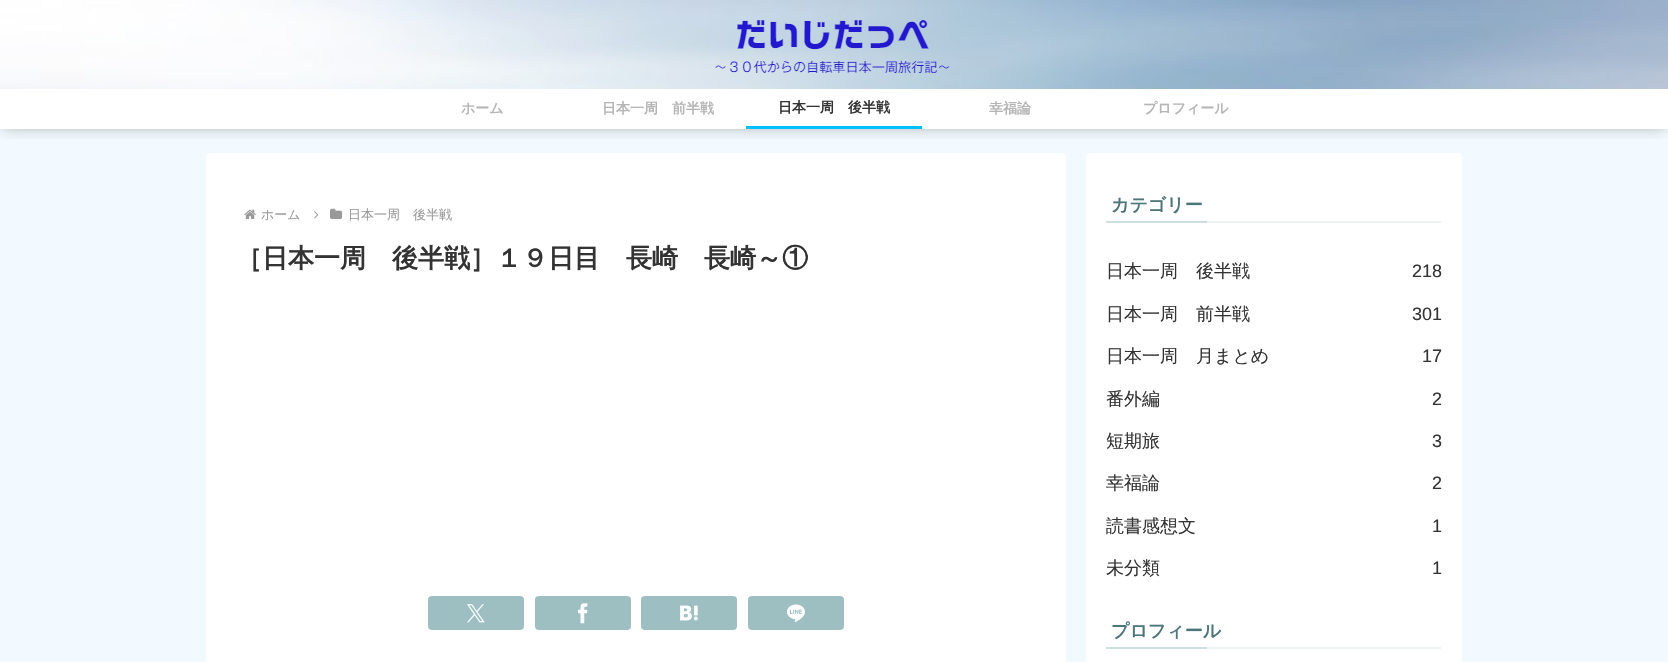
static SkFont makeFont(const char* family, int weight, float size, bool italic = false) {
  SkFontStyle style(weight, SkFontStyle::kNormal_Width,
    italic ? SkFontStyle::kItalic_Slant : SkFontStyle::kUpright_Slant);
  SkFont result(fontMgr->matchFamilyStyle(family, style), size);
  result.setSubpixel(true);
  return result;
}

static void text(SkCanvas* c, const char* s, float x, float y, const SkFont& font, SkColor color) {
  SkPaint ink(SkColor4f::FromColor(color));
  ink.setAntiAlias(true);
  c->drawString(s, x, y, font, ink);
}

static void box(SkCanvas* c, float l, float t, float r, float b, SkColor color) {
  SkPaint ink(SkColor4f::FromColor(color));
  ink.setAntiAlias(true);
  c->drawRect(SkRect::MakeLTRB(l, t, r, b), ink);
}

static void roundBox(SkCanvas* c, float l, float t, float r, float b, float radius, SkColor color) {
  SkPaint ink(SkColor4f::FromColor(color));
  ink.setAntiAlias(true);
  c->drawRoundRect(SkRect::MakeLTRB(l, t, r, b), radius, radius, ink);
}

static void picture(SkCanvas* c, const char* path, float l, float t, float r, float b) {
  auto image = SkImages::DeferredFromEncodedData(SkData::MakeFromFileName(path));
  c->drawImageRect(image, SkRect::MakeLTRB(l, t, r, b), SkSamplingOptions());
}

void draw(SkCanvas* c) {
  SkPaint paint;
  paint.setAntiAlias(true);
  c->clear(0xfff2faff);
  paint.setColor(0x0a000000);
  paint.setMaskFilter(SkMaskFilter::MakeBlur(kNormal_SkBlurStyle, 2.5f));
  c->drawRect(SkRect::MakeLTRB(0, 2, 1668, 131), paint);
  paint.setMaskFilter(nullptr);
  box(c, 0, 89, 1668, 129, 0xffffffff);
  picture(c, "img_01.png", 0, 0, 1668, 89);
  picture(c, "img_02.png", 715, 20, 950, 73);
  c->save();
  c->clipRect(SkRect::MakeLTRB(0, 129, 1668, 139));
  paint.setColor(0x33000000);
  paint.setMaskFilter(SkMaskFilter::MakeBlur(kNormal_SkBlurStyle, 7.5f));
  c->drawRect(SkRect::MakeLTRB(5, 99, 1663, 129), paint);
  paint.setMaskFilter(nullptr);
  c->restore();
  SkFont face1 = makeFont("WenQuanYi Zen Hei", 700, 14);
  text(c, "ホーム", 461, 113, face1, 0xffb5b5b5);
  text(c, "日本一周　前半戦", 602, 113, face1, 0xffb5b5b5);
  box(c, 746, 126, 922, 129, 0xff00bfff);
  text(c, "日本一周　後半戦", 778, 112, face1, 0xff333333);
  text(c, "幸福論", 989, 113, face1, 0xffb5b5b5);
  text(c, "プロフィール", 1143, 113, face1, 0xffb5b5b5);
  roundBox(c, 206, 153, 1066, 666, 4, 0xffffffff);
  picture(c, "img_03.png", 244, 209, 256, 219);
  SkFont face2 = makeFont("WenQuanYi Zen Hei", 500, 13);
  text(c, "ホーム", 261, 219, face2, 0xff999999);
  picture(c, "img_04.png", 314, 211, 319, 219);
  picture(c, "img_05.png", 330, 208, 343, 219);
  text(c, "日本一周　後半戦", 348, 219, face2, 0xff999999);
  SkFont face3 = makeFont("WenQuanYi Zen Hei", 700, 26);
  text(c, "［日本一周　後半戦］１９日目　長崎　長崎～①", 236, 267, face3, 0xff333333);
  roundBox(c, 428, 596, 524, 630, 4, 0xff9ebfc2);
  picture(c, "img_06.png", 467, 604, 485, 623);
  roundBox(c, 535, 596, 631, 630, 4, 0xff9ebfc2);
  picture(c, "img_07.png", 578, 603, 588, 624);
  roundBox(c, 641, 596, 737, 630, 4, 0xff9ebfc2);
  picture(c, "img_08.png", 680, 605, 698, 621);
  roundBox(c, 748, 596, 844, 630, 4, 0xff9ebfc2);
  picture(c, "img_09.png", 787, 604, 805, 622);
  roundBox(c, 1086, 153, 1462, 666, 4, 0xffffffff);
  box(c, 1207, 221, 1441, 223, 0xffedf3f3);
  SkFont face4 = makeFont("WenQuanYi Zen Hei", 700, 18);
  text(c, "カテゴリー", 1111, 211, face4, 0xff4d767b);
  box(c, 1106, 221, 1207, 223, 0xffcddee0);
  SkFont face5 = makeFont("WenQuanYi Zen Hei", 500, 18);
  text(c, "日本一周　後半戦", 1106, 277, face5, 0xff333333);
  SkFont face6 = makeFont("Liberation Sans", 400, 18);
  text(c, "218", 1412, 277, face6, 0xff333333);
  text(c, "日本一周　前半戦", 1106, 320, face5, 0xff333333);
  text(c, "301", 1412, 320, face6, 0xff333333);
  text(c, "日本一周　月まとめ", 1106, 362, face5, 0xff333333);
  text(c, "17", 1422, 362, face6, 0xff333333);
  text(c, "番外編", 1106, 405, face5, 0xff333333);
  text(c, "2", 1432, 405, face6, 0xff333333);
  text(c, "短期旅", 1106, 447, face5, 0xff333333);
  text(c, "3", 1432, 447, face6, 0xff333333);
  text(c, "幸福論", 1106, 489, face5, 0xff333333);
  text(c, "2", 1432, 489, face6, 0xff333333);
  text(c, "読書感想文", 1106, 532, face5, 0xff333333);
  text(c, "1", 1432, 532, face6, 0xff333333);
  text(c, "未分類", 1106, 574, face5, 0xff333333);
  text(c, "1", 1432, 574, face6, 0xff333333);
  box(c, 1207, 647, 1441, 649, 0xffedf3f3);
  text(c, "プロフィール", 1111, 637, face4, 0xff4d767b);
  box(c, 1106, 647, 1207, 649, 0xffcddee0);
}
